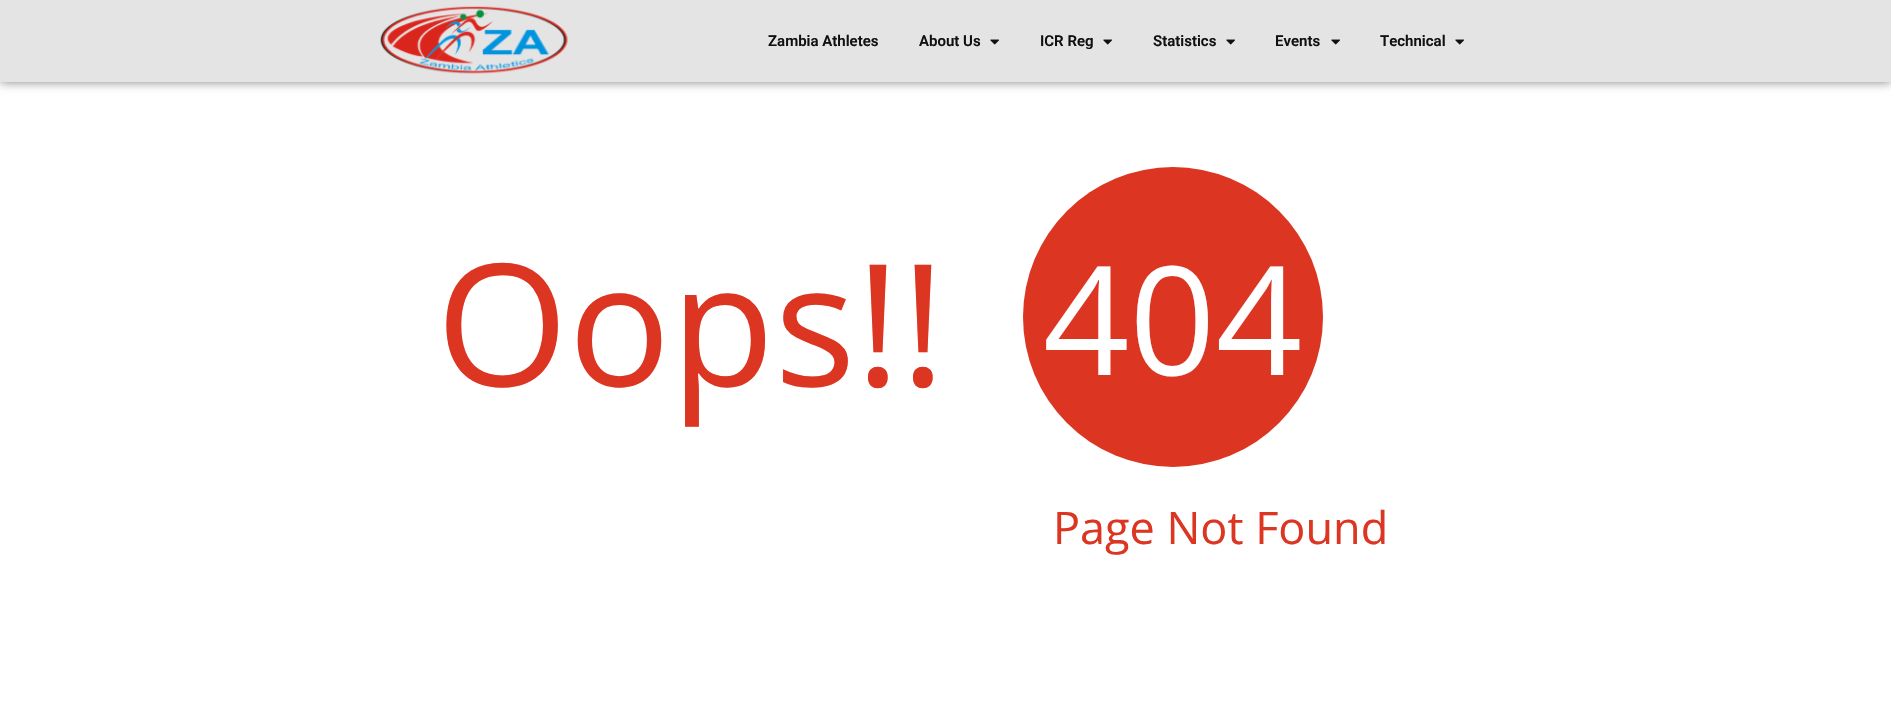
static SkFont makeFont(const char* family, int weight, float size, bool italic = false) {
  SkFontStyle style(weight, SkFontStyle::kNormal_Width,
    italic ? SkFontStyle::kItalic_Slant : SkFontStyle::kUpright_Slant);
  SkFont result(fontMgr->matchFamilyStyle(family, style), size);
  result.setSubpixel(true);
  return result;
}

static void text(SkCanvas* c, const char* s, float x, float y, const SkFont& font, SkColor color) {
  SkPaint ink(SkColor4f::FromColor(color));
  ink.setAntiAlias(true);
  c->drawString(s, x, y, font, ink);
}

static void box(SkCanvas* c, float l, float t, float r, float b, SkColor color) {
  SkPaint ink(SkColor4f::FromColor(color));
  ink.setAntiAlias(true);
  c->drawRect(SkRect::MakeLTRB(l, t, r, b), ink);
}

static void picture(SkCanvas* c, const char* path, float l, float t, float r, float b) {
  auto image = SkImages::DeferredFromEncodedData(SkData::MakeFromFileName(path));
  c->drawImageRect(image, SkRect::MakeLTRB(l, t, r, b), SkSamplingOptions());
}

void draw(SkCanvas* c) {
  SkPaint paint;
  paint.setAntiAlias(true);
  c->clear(0xffffffff);
  paint.setColor(0x80000000);
  paint.setMaskFilter(SkMaskFilter::MakeBlur(kNormal_SkBlurStyle, 5));
  c->drawRect(SkRect::MakeLTRB(0, 0, 1891, 82), paint);
  paint.setMaskFilter(nullptr);
  box(c, 0, 0, 1891, 82, 0xffe4e4e4);
  picture(c, "img_01.png", 380, 6, 568, 74);
  SkFont face1 = makeFont("Roboto", 600, 15);
  text(c, "Zambia Athletes", 768, 46, face1, 0xff111111);
  text(c, "About Us", 919, 46, face1, 0xff111111);
  picture(c, "img_02.png", 990, 39, 999, 45);
  text(c, "ICR Reg", 1040, 46, face1, 0xff111111);
  picture(c, "img_02.png", 1103, 39, 1112, 45);
  text(c, "Statistics", 1153, 46, face1, 0xff111111);
  picture(c, "img_02.png", 1226, 39, 1235, 45);
  text(c, "Events", 1275, 46, face1, 0xff111111);
  picture(c, "img_02.png", 1331, 39, 1340, 45);
  text(c, "Technical", 1380, 46, face1, 0xff111111);
  picture(c, "img_02.png", 1455, 39, 1464, 45);
  SkFont face2 = makeFont("Open Sans", 400, 170);
  text(c, "Oops!!", 436, 386, face2, 0xffdc3522);
  paint.setColor(0xffdc3522);
  c->drawCircle(1173, 317, 150, paint);
  SkFont face3 = makeFont("Open Sans", 400, 151);
  text(c, "404", 1043, 375, face3, 0xffffffff);
  SkFont face4 = makeFont("Open Sans", 400, 45);
  text(c, "Page Not Found", 1053, 544, face4, 0xffdc3522);
}
